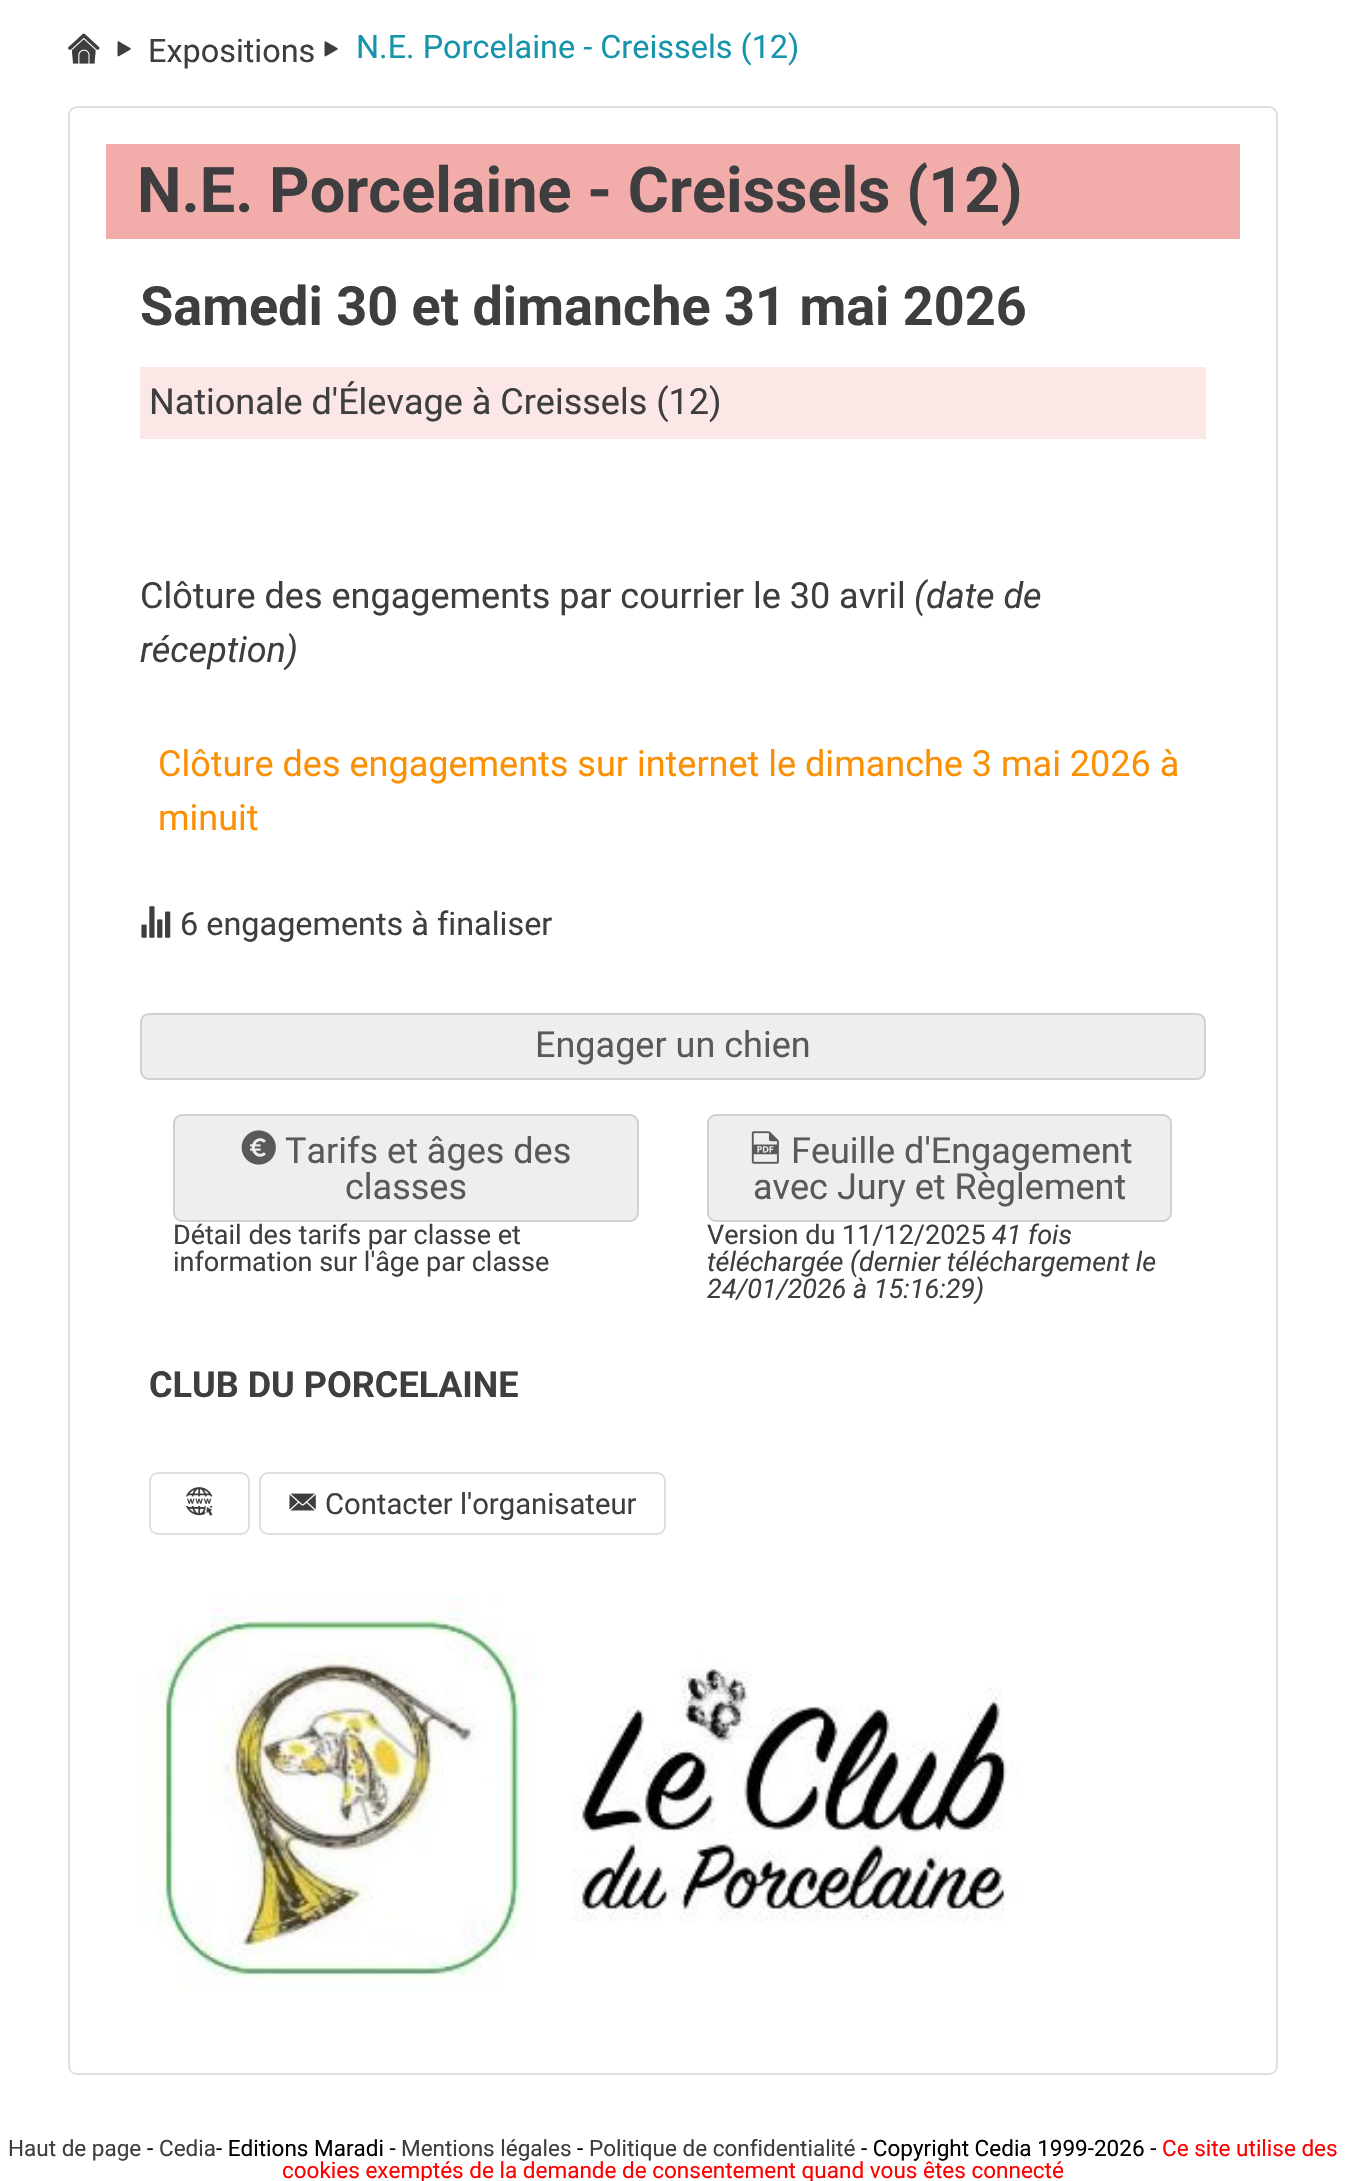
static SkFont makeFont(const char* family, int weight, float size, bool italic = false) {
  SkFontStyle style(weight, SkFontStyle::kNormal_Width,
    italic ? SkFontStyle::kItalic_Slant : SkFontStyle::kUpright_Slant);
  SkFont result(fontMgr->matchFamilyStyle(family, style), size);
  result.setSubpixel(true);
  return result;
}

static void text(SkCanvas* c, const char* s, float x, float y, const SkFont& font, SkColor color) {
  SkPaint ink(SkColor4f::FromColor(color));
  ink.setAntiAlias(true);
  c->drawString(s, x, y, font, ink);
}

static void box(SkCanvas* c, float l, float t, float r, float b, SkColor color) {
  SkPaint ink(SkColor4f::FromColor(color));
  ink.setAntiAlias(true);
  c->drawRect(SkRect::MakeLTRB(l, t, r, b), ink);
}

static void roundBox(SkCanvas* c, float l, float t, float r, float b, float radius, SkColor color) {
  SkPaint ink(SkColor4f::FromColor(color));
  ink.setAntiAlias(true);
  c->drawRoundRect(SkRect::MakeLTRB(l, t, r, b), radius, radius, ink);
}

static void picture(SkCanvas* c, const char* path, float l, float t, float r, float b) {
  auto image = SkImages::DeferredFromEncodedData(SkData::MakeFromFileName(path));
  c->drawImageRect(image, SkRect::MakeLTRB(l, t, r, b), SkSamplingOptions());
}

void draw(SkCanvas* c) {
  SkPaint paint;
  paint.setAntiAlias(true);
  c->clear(0xffffffff);
  picture(c, "img_01.png", 68, 33, 100, 64);
  picture(c, "img_02.png", 117, 41, 131, 57);
  SkFont face1 = makeFont("Roboto", 400, 32.4f);
  text(c, "Expositions", 148, 62, face1, 0xff3e3d40);
  picture(c, "img_02.png", 324, 41, 338, 57);
  text(c, "N.E. Porcelaine - Creissels (12)", 356, 58, face1, 0xff1694ab);
  paint.setStyle(SkPaint::kStroke_Style);
  paint.setStrokeWidth(2);
  paint.setColor(0xffdfdfdf);
  c->drawRoundRect(SkRect::MakeLTRB(69, 107, 1277, 2074), 8, 8, paint);
  box(c, 106, 144, 1240, 239, 0xfff2adab);
  SkFont face2 = makeFont("Roboto", 700, 63);
  text(c, "N.E. Porcelaine - Creissels (12)", 137, 212, face2, 0xff3e3d40);
  SkFont face3 = makeFont("Roboto", 700, 54);
  text(c, "Samedi 30 et dimanche 31 mai 2026", 140, 325, face3, 0xff3e3d40);
  box(c, 140, 367, 1206, 439, 0xfffbe7e6);
  SkFont face4 = makeFont("Roboto", 400, 36);
  text(c, "Nationale d'Élevage à Creissels (12)", 149, 414, face4, 0xff3e3d40);
  text(c, "Clôture des engagements par courrier le 30 avril", 140, 608, face4, 0xff3e3d40);
  SkFont face5 = makeFont("Roboto", 400, 36, true);
  text(c, "(date de", 914, 608, face5, 0xff3e3d40);
  text(c, "réception)", 140, 662, face5, 0xff3e3d40);
  text(c, "Clôture des engagements sur internet le dimanche 3 mai 2026 à", 158, 776, face4, 0xfffc9005);
  text(c, "minuit", 158, 830, face4, 0xfffc9005);
  picture(c, "img_03.png", 141, 906, 171, 938);
  text(c, "6 engagements à finaliser", 180, 935, face1, 0xff3e3d40);
  roundBox(c, 140, 1013, 1206, 1080, 9, 0xffeeeeee);
  paint.setColor(0x1f000000);
  c->drawRoundRect(SkRect::MakeLTRB(141, 1014, 1205, 1079), 8, 8, paint);
  text(c, "Engager un chien", 535, 1057, face4, 0xff58595b);
  roundBox(c, 173, 1114, 639, 1222, 9, 0xffeeeeee);
  c->drawRoundRect(SkRect::MakeLTRB(174, 1115, 638, 1221), 8, 8, paint);
  picture(c, "img_04.png", 241, 1130, 276, 1165);
  text(c, "Tarifs et âges des", 285, 1163, face4, 0xff58595b);
  text(c, "classes", 345, 1199, face4, 0xff58595b);
  SkFont face6 = makeFont("Roboto", 400, 27);
  text(c, "Détail des tarifs par classe et", 173, 1244, face6, 0xff3e3d40);
  text(c, "information sur l'âge par classe", 173, 1271, face6, 0xff3e3d40);
  roundBox(c, 707, 1114, 1172, 1222, 9, 0xffeeeeee);
  c->drawRoundRect(SkRect::MakeLTRB(708, 1115, 1171, 1221), 8, 8, paint);
  picture(c, "img_05.png", 751, 1131, 779, 1164);
  text(c, "Feuille d'Engagement", 791, 1163, face4, 0xff58595b);
  text(c, "avec Jury et Règlement", 753, 1199, face4, 0xff58595b);
  text(c, "Version du 11/12/2025", 707, 1244, face6, 0xff3e3d40);
  SkFont face7 = makeFont("Roboto", 400, 27, true);
  text(c, "41 fois", 992, 1244, face7, 0xff3e3d40);
  text(c, "téléchargée (dernier téléchargement le", 707, 1271, face7, 0xff3e3d40);
  text(c, "24/01/2026 à 15:16:29)", 707, 1298, face7, 0xff3e3d40);
  SkFont face8 = makeFont("Roboto", 700, 36);
  text(c, "CLUB DU PORCELAINE", 149, 1397, face8, 0xff3e3d40);
  paint.setColor(0xffdfdfdf);
  c->drawRoundRect(SkRect::MakeLTRB(150, 1473, 249, 1534), 8, 8, paint);
  picture(c, "img_06.png", 186, 1487, 213, 1516);
  c->drawRoundRect(SkRect::MakeLTRB(260, 1473, 665, 1534), 8, 8, paint);
  picture(c, "img_07.png", 289, 1493, 316, 1511);
  SkFont face9 = makeFont("Roboto", 400, 29.25f);
  text(c, "Contacter l'organisateur", 325, 1514, face9, 0xff3e3d40);
  picture(c, "img_08.png", 140, 1597, 1021, 1991);
  SkFont face10 = makeFont("Roboto", 400, 22.5f);
  text(c, "Haut de page", 8, 2156, face10, 0xff3e3d40);
  text(c, "-", 147, 2156, face10, 0xff000000);
  text(c, "Cedia", 159, 2156, face10, 0xff3e3d40);
  text(c, "- Editions Maradi -", 216, 2156, face10, 0xff000000);
  text(c, "Mentions légales", 401, 2156, face10, 0xff3e3d40);
  text(c, "-", 577, 2156, face10, 0xff000000);
  text(c, "Politique de confidentialité", 589, 2156, face10, 0xff3e3d40);
  text(c, "- Copyright Cedia 1999-2026 -", 861, 2156, face10, 0xff000000);
  text(c, "Ce site utilise des", 1162, 2156, face10, 0xffff0000);
  text(c, "cookies exemptés de la demande de consentement quand vous êtes connecté", 282, 2178, face10, 0xffff0000);
}
